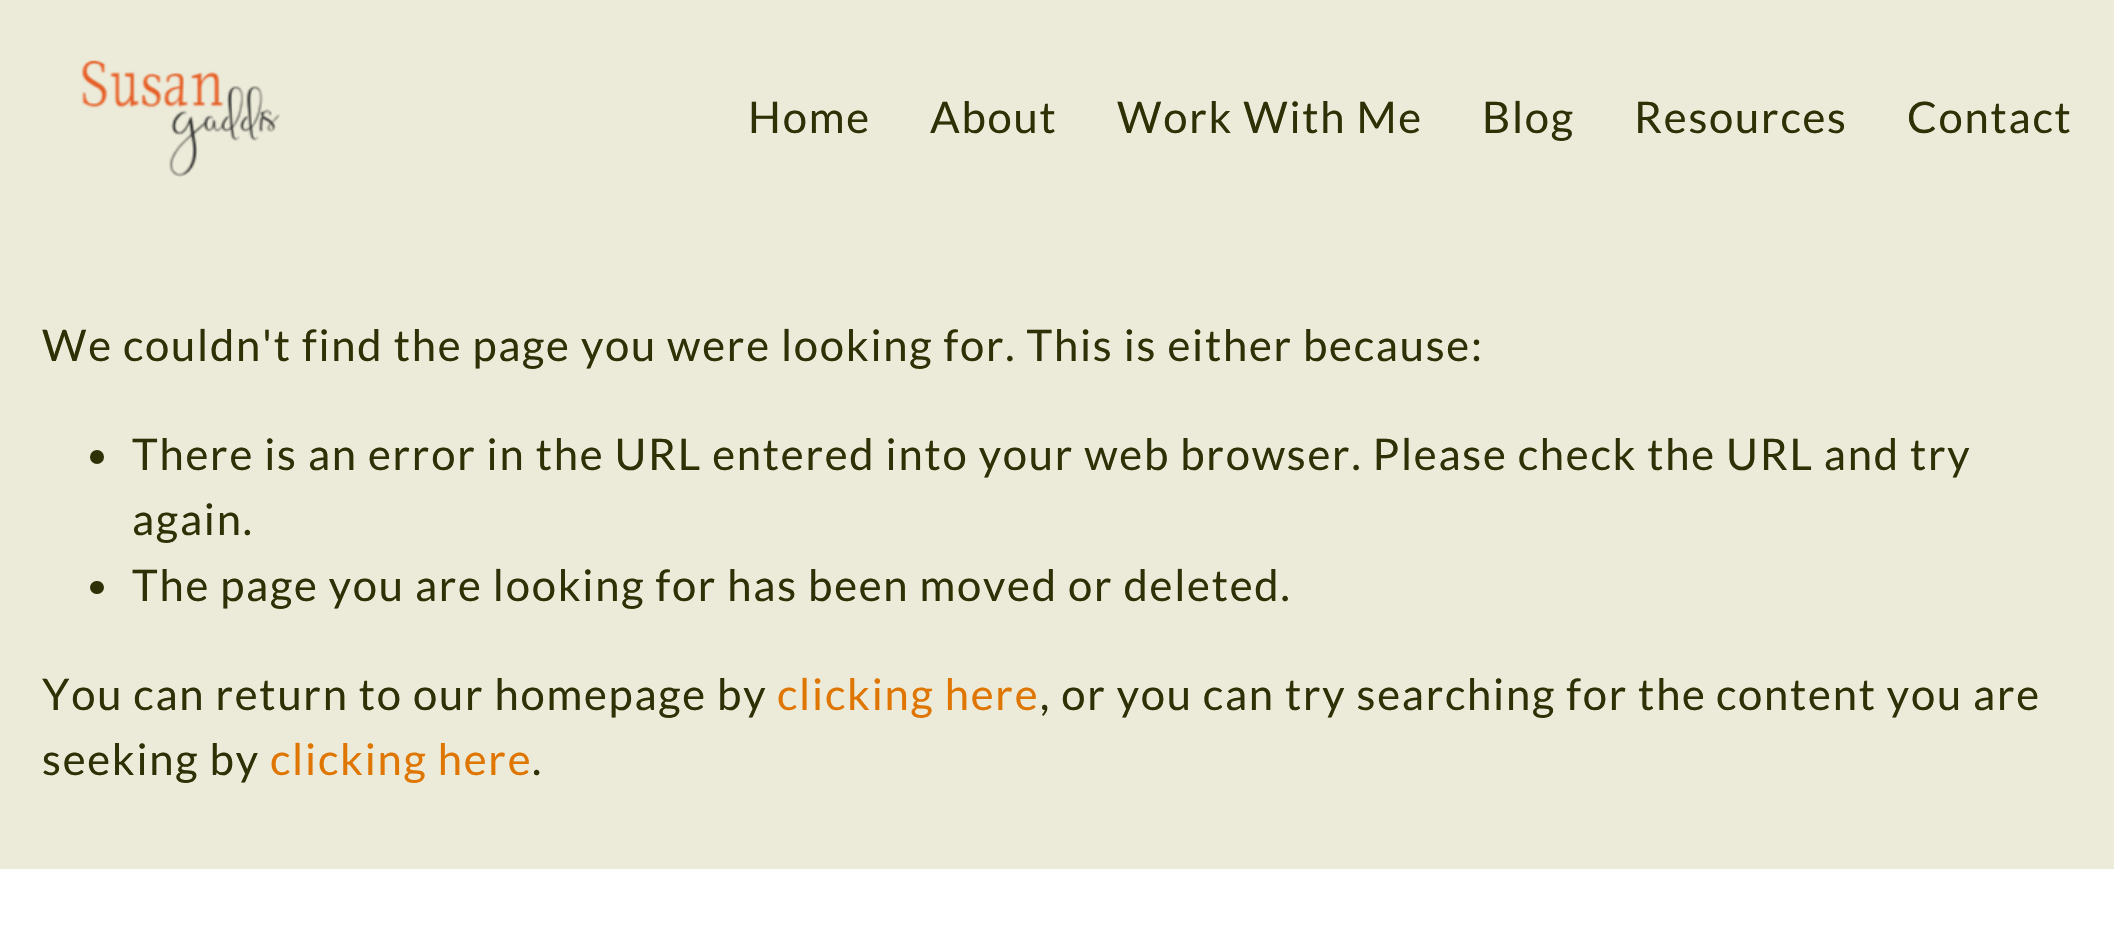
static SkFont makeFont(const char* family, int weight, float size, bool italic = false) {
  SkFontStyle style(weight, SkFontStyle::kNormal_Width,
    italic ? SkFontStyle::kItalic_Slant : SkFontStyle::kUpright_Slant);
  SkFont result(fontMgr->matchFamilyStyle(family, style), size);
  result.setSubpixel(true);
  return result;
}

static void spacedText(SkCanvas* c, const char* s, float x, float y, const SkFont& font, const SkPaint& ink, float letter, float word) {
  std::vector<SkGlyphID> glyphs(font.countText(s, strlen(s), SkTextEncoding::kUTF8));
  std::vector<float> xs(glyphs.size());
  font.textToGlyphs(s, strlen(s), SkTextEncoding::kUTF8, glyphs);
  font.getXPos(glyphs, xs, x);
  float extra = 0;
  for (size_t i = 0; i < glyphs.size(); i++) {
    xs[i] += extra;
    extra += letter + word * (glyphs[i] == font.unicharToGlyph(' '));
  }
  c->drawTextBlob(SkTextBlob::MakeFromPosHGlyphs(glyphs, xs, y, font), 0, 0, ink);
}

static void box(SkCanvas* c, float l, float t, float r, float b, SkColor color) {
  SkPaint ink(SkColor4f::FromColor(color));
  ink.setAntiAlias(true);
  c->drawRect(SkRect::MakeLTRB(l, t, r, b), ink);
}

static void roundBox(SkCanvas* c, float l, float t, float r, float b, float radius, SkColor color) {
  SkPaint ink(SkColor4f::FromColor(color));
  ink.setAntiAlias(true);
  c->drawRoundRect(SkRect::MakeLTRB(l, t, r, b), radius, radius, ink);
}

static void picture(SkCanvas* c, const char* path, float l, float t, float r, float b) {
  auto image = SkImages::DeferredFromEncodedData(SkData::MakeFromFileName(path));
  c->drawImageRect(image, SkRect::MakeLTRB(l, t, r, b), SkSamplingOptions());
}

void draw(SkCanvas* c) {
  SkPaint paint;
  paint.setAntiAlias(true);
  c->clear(0xffecebd9);
  picture(c, "img_01.png", 81, 60, 280, 177);
  SkFont face1 = makeFont("Lato", 400, 43.6f);
  paint.setColor(0xff2e3105);
  spacedText(c, "Home", 748, 133, face1, paint, 1.75f, 0);
  spacedText(c, "About", 930, 133, face1, paint, 1.75f, 0);
  spacedText(c, "Work With Me", 1117, 133, face1, paint, 1.75f, 0);
  spacedText(c, "Blog", 1482, 133, face1, paint, 1.75f, 0);
  spacedText(c, "Resources", 1634, 133, face1, paint, 1.75f, 0);
  spacedText(c, "Contact", 1907, 133, face1, paint, 1.75f, 0);
  spacedText(c, "We couldn't find the page you were looking for. This is either because:", 42, 361, face1, paint, 1.75f, 0);
  c->drawCircle(97, 457, 7, paint);
  spacedText(c, "There is an error in the URL entered into your web browser. Please check the URL and try", 132, 470, face1, paint, 1.75f, 0);
  spacedText(c, "again.", 132, 535, face1, paint, 1.75f, 0);
  roundBox(c, 90, 581, 104, 594, 6.5f, 0xff2e3105);
  spacedText(c, "The page you are looking for has been moved or deleted.", 132, 601, face1, paint, 1.75f, 0);
  spacedText(c, "You can return to our homepage by", 42, 710, face1, paint, 1.75f, 0);
  paint.setColor(0xffdf7601);
  spacedText(c, "clicking here", 777, 710, face1, paint, 1.75f, 0);
  paint.setColor(0xff2e3105);
  spacedText(c, ", or you can try searching for the", 1040, 710, face1, paint, 1.75f, 0);
  spacedText(c, "content you are", 1716, 710, face1, paint, 1.75f, 0);
  spacedText(c, "seeking by", 42, 775, face1, paint, 1.75f, 0);
  paint.setColor(0xffdf7601);
  spacedText(c, "clicking here", 270, 775, face1, paint, 1.75f, 0);
  paint.setColor(0xff2e3105);
  spacedText(c, ".", 532, 775, face1, paint, 1.75f, 0);
  box(c, 0, 869, 2114, 936, 0xffffffff);
}
